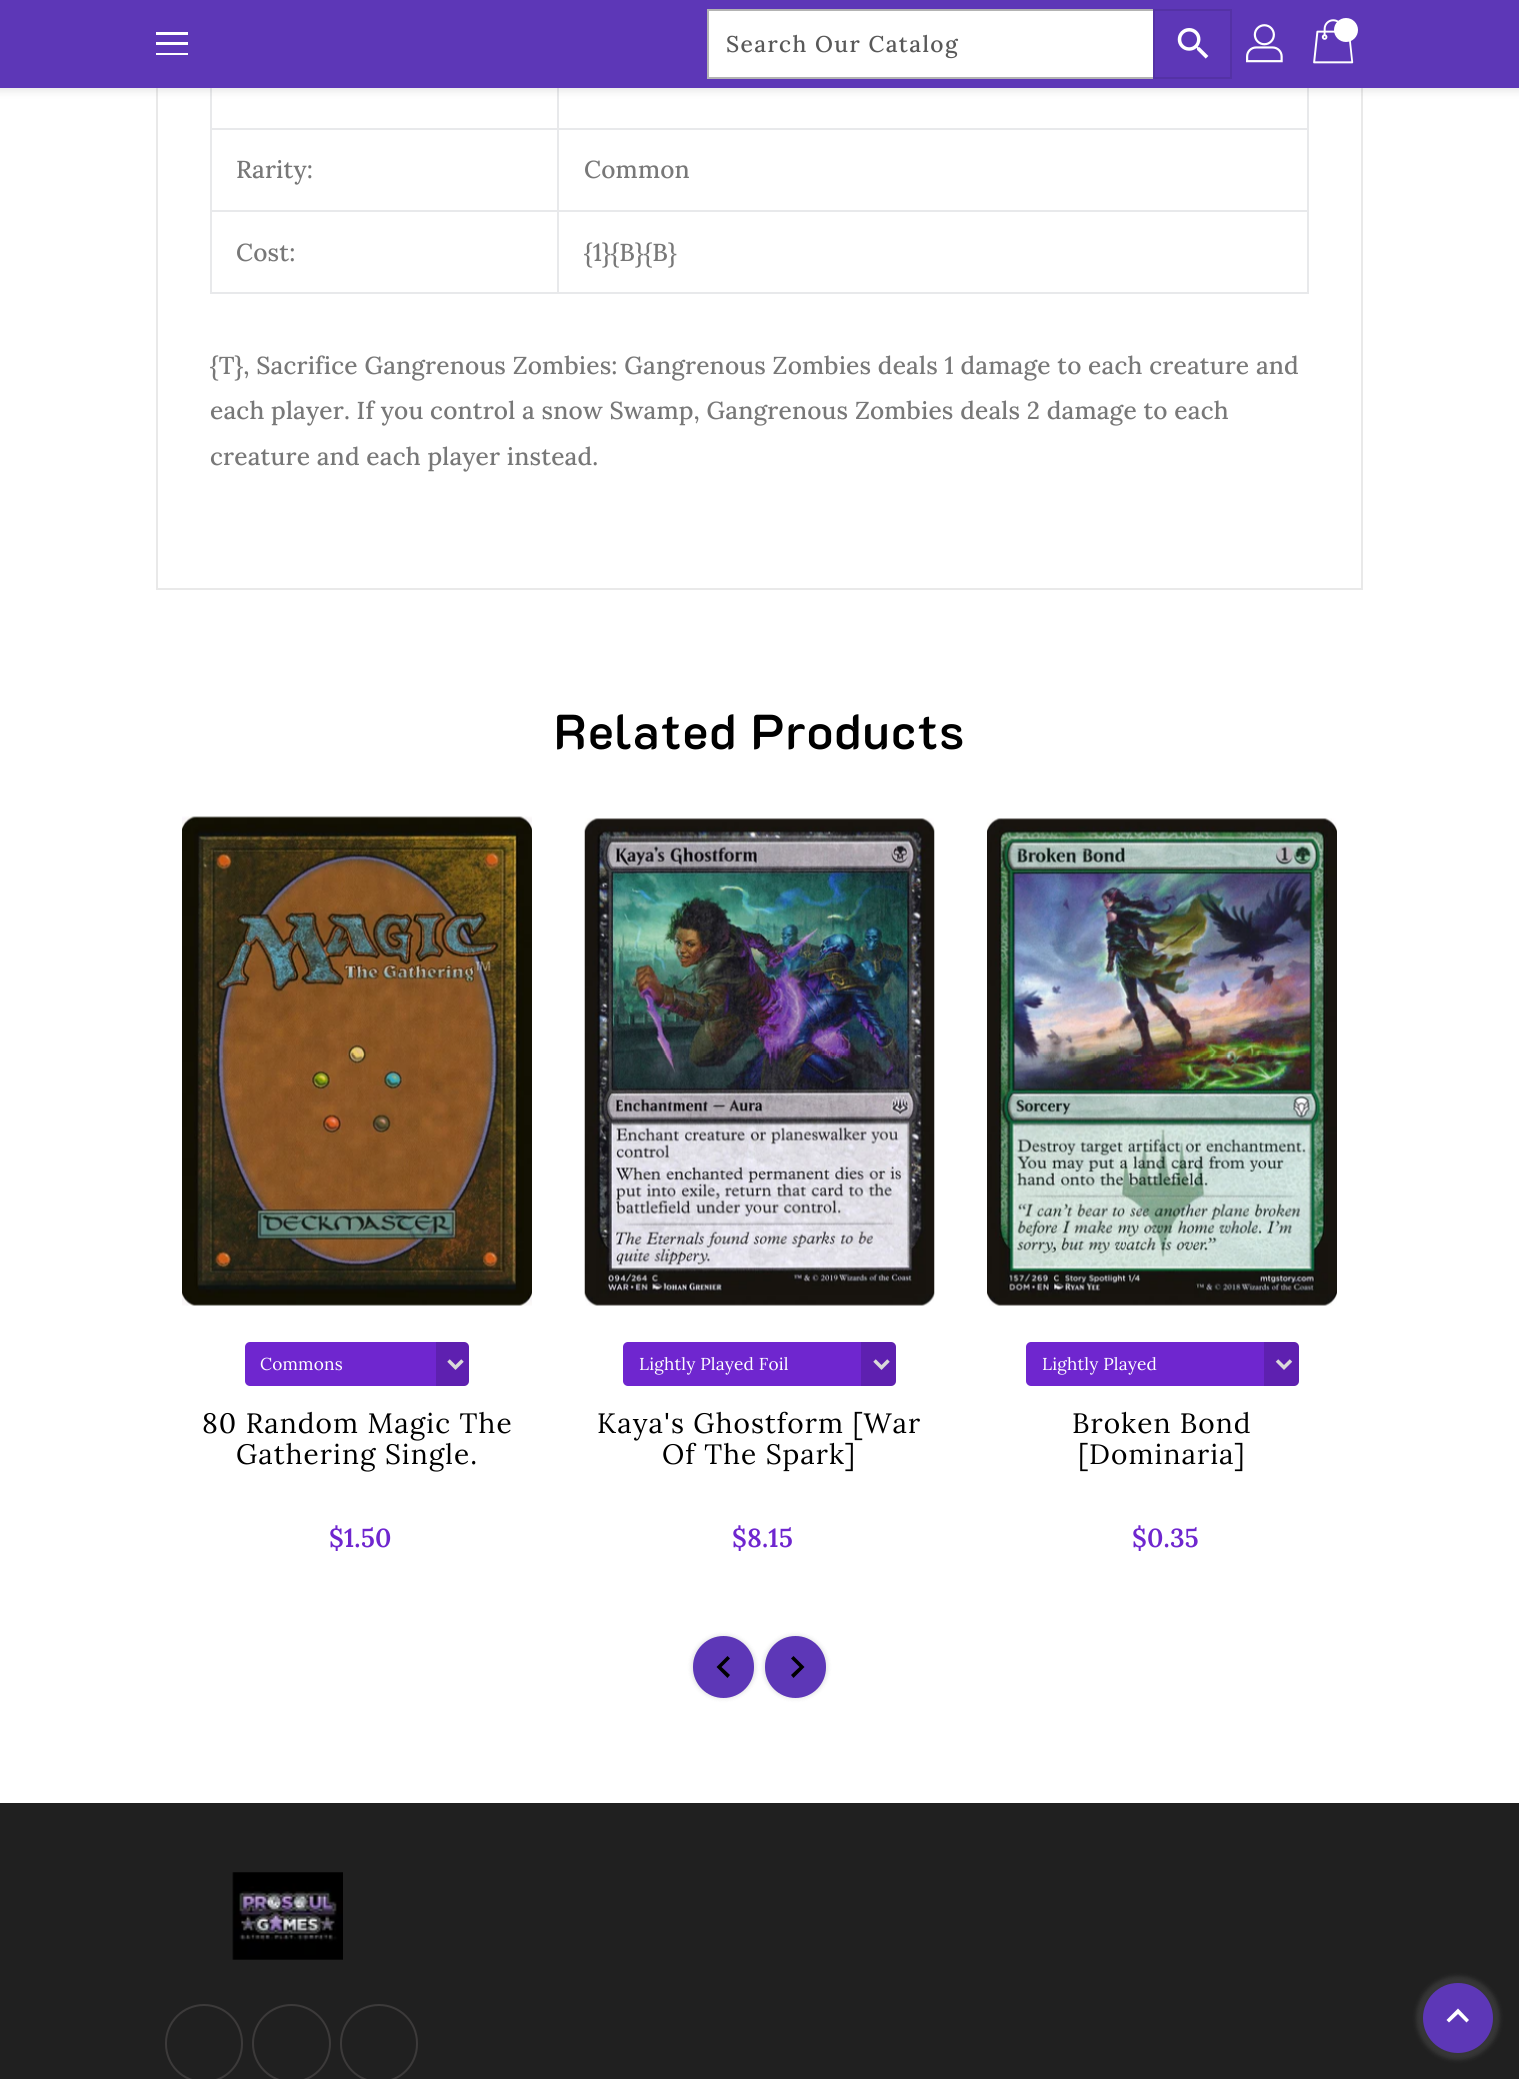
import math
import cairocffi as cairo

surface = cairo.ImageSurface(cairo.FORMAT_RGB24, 1519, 2079)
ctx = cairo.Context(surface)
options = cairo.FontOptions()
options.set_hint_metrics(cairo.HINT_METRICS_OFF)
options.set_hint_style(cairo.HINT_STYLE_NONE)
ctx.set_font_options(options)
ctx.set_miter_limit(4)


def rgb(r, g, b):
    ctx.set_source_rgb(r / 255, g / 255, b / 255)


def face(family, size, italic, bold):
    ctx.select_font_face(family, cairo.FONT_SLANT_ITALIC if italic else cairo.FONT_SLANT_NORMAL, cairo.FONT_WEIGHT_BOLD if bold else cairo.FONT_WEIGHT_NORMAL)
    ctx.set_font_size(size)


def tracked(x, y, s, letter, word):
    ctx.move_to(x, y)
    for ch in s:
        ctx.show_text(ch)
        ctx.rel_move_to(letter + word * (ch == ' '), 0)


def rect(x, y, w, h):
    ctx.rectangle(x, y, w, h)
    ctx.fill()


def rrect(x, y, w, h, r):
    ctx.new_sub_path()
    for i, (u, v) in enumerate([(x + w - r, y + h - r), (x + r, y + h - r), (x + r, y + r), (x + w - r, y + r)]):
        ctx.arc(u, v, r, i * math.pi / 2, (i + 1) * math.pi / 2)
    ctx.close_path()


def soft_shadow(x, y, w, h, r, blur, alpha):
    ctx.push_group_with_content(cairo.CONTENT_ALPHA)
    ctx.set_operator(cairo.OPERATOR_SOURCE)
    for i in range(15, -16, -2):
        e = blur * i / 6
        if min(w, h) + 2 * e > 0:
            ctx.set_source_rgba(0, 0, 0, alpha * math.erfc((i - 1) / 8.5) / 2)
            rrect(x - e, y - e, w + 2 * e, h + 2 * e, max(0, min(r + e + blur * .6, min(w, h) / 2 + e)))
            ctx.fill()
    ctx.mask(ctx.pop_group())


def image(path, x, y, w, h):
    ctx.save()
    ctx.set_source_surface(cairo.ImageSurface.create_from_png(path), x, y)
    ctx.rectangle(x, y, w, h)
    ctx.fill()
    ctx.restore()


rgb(255, 255, 255)
ctx.paint()
ctx.rectangle(157, -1, 1205, 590)
rgb(233, 233, 233)
ctx.stroke()
rgb(232, 233, 235)
rect(557, 128, 752, 2)
rect(557, 210, 752, 2)
rect(1307, 210, 2, 84)
rect(557, 292, 752, 2)
rect(557, 210, 2, 84)
rect(210, 210, 348, 2)
rect(557, 128, 2, 84)
rect(210, 128, 348, 2)
rect(557, 88, 2, 42)
rect(210, 292, 348, 2)
rect(210, 210, 2, 84)
rect(210, 88, 2, 124)
rect(1307, 88, 2, 124)
rgb(0, 0, 0)
soft_shadow(-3, -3, 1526, 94, 0, 4.5, 0.1)
rgb(93, 55, 183)
rect(0, 0, 1519, 88)
rgb(255, 255, 255)
rect(156, 32, 32, 3)
rect(156, 42, 32, 3)
rect(156, 53, 32, 2)
rect(709, 11, 444, 66)
ctx.rectangle(708, 10, 523, 68)
rgb(179, 179, 179)
ctx.stroke()
face('Lora Medium', 22.75, 0, 0)
rgb(89, 89, 89)
tracked(726, 52, 'Search Our Catalog', 1.4, 0)
ctx.rectangle(1154, 10, 77, 68)
rgb(84, 50, 165)
ctx.stroke()
image('image0.png', 1177, 28, 32, 31)
image('image1.png', 1246, 24, 37, 39)
image('image2.png', 1313, 19, 41, 45)
rgb(255, 255, 255)
ctx.arc(1346, 30, 12, 0, 2 * math.pi)
ctx.fill()
face('Lora Medium', 24.5, 0, 0)
rgb(120, 120, 120)
tracked(236, 178, 'Rarity:', 0.18, 0)
tracked(584, 178, 'Common', 0.18, 0)
tracked(236, 261, 'Cost:', 0.18, 0)
tracked(584, 261, '{1}{B}{B}', 0.18, 0)
tracked(210, 374, '{T}, Sacrifice Gangrenous Zombies: Gangrenous Zombies deals 1 damage to each creature and', 0.18, 0)
tracked(210, 419, 'each player. If you control a snow Swamp, Gangrenous Zombies deals 2 damage to each', 0.18, 0)
tracked(210, 465, 'creature and each player instead.', 0.18, 0)
face('K2D SemiBold', 49, 0, 0)
rgb(0, 0, 0)
tracked(554, 749, 'Related Products', 0.9, 0)
image('image3.png', 182, 816, 350, 490)
rgb(111, 38, 207)
rrect(245, 1342, 224, 44, 5)
ctx.fill()
ctx.new_path()
ctx.move_to(448.5, 1360.5)
ctx.line_to(455.5, 1367.5)
ctx.line_to(462.5, 1360.5)
rgb(255, 255, 255)
ctx.set_line_width(3.5)
ctx.stroke()
face('Lora', 17.25, 0, 0)
tracked(260, 1370, 'Commons', 0.18, 0)
ctx.set_source_rgba(0, 0, 0, 0.15)
ctx.new_path()
ctx.move_to(436, 1342)
ctx.line_to(464, 1342)
ctx.curve_to(467, 1342, 469, 1344, 469, 1347)
ctx.line_to(469, 1381)
ctx.curve_to(469, 1384, 467, 1386, 464, 1386)
ctx.line_to(436, 1386)
ctx.close_path()
ctx.fill()
face('Lora', 28, 0, 0)
rgb(0, 0, 0)
tracked(202, 1433, '80 Random Magic The', 1.05, 0)
tracked(236, 1464, 'Gathering Single.', 1.05, 0)
face('Lora SemiBold', 26, 0, 0)
rgb(111, 38, 207)
tracked(329, 1547, '$1.50', 0.18, 0)
image('image4.png', 584, 818, 351, 488)
rrect(623, 1342, 273, 44, 5)
ctx.fill()
ctx.new_path()
ctx.move_to(874.5, 1360.5)
ctx.line_to(881.5, 1367.5)
ctx.line_to(888.5, 1360.5)
rgb(255, 255, 255)
ctx.stroke()
face('Lora', 17.25, 0, 0)
tracked(639, 1370, 'Lightly Played Foil', 0.18, 0)
ctx.set_source_rgba(0, 0, 0, 0.15)
ctx.new_path()
ctx.move_to(861, 1342)
ctx.line_to(891, 1342)
ctx.curve_to(894, 1342, 896, 1344, 896, 1347)
ctx.line_to(896, 1381)
ctx.curve_to(896, 1384, 894, 1386, 891, 1386)
ctx.line_to(861, 1386)
ctx.close_path()
ctx.fill()
face('Lora', 28, 0, 0)
rgb(0, 0, 0)
tracked(597, 1433, 'Kaya\'s Ghostform [War', 1.05, 0)
tracked(662, 1464, 'Of The Spark]', 1.05, 0)
face('Lora SemiBold', 26, 0, 0)
rgb(111, 38, 207)
tracked(732, 1547, '$8.15', 0.18, 0)
image('image5.png', 987, 818, 350, 488)
rrect(1026, 1342, 273, 44, 5)
ctx.fill()
ctx.new_path()
ctx.move_to(1277, 1360.5)
ctx.line_to(1284, 1367.5)
ctx.line_to(1291, 1360.5)
rgb(255, 255, 255)
ctx.stroke()
face('Lora', 17.25, 0, 0)
tracked(1042, 1370, 'Lightly Played', 0.18, 0)
ctx.set_source_rgba(0, 0, 0, 0.15)
ctx.new_path()
ctx.move_to(1264, 1342)
ctx.line_to(1294, 1342)
ctx.curve_to(1297, 1342, 1299, 1344, 1299, 1347)
ctx.line_to(1299, 1381)
ctx.curve_to(1299, 1384, 1297, 1386, 1294, 1386)
ctx.line_to(1264, 1386)
ctx.close_path()
ctx.fill()
face('Lora', 28, 0, 0)
rgb(0, 0, 0)
tracked(1072, 1433, 'Broken Bond', 1.05, 0)
tracked(1078, 1464, '[Dominaria]', 1.05, 0)
face('Lora SemiBold', 26, 0, 0)
rgb(111, 38, 207)
tracked(1132, 1547, '$0.35', 0.18, 0)
rgb(0, 0, 0)
soft_shadow(691, 1635, 65, 64, 32, 2, 0.1)
rgb(93, 55, 183)
rrect(693, 1636, 61, 62, 30.5)
ctx.fill()
rgb(0, 0, 0)
ctx.new_path()
ctx.move_to(730, 1675)
ctx.line_to(727.5, 1678)
ctx.line_to(716.5, 1667)
ctx.line_to(727.5, 1656)
ctx.line_to(730, 1658.5)
ctx.line_to(721.5, 1667)
ctx.close_path()
ctx.fill()
rgb(0, 0, 0)
soft_shadow(763, 1635, 65, 64, 32, 2, 0.1)
rgb(93, 55, 183)
rrect(765, 1636, 61, 62, 30.5)
ctx.fill()
rgb(0, 0, 0)
ctx.new_path()
ctx.move_to(791, 1675)
ctx.line_to(799.5, 1667)
ctx.line_to(791, 1658.5)
ctx.line_to(793.5, 1656)
ctx.line_to(804.5, 1667)
ctx.line_to(793.5, 1678)
ctx.close_path()
ctx.fill()
rgb(32, 32, 32)
rect(0, 1803, 1519, 276)
image('image6.png', 232, 1872, 111, 88)
rrect(166, 2005, 76, 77, 38)
rgb(60, 58, 58)
ctx.set_line_width(2)
ctx.stroke()
ctx.arc(291.5, 2043.5, 38.5, 0, 2 * math.pi)
ctx.stroke()
rrect(341, 2005, 76, 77, 38)
ctx.stroke()
rgb(255, 255, 255)
soft_shadow(1416, 1976, 84, 84, 42, 2, 0.1)
rgb(93, 55, 183)
ctx.arc(1458, 2018, 35, 0, 2 * math.pi)
ctx.fill()
rgb(255, 255, 255)
ctx.new_path()
ctx.move_to(1458, 2008.5)
ctx.line_to(1469, 2020)
ctx.line_to(1466.5, 2022.5)
ctx.line_to(1458, 2014)
ctx.line_to(1449, 2022.5)
ctx.line_to(1446.5, 2020)
ctx.close_path()
ctx.fill()
surface.write_to_png('render.png')
